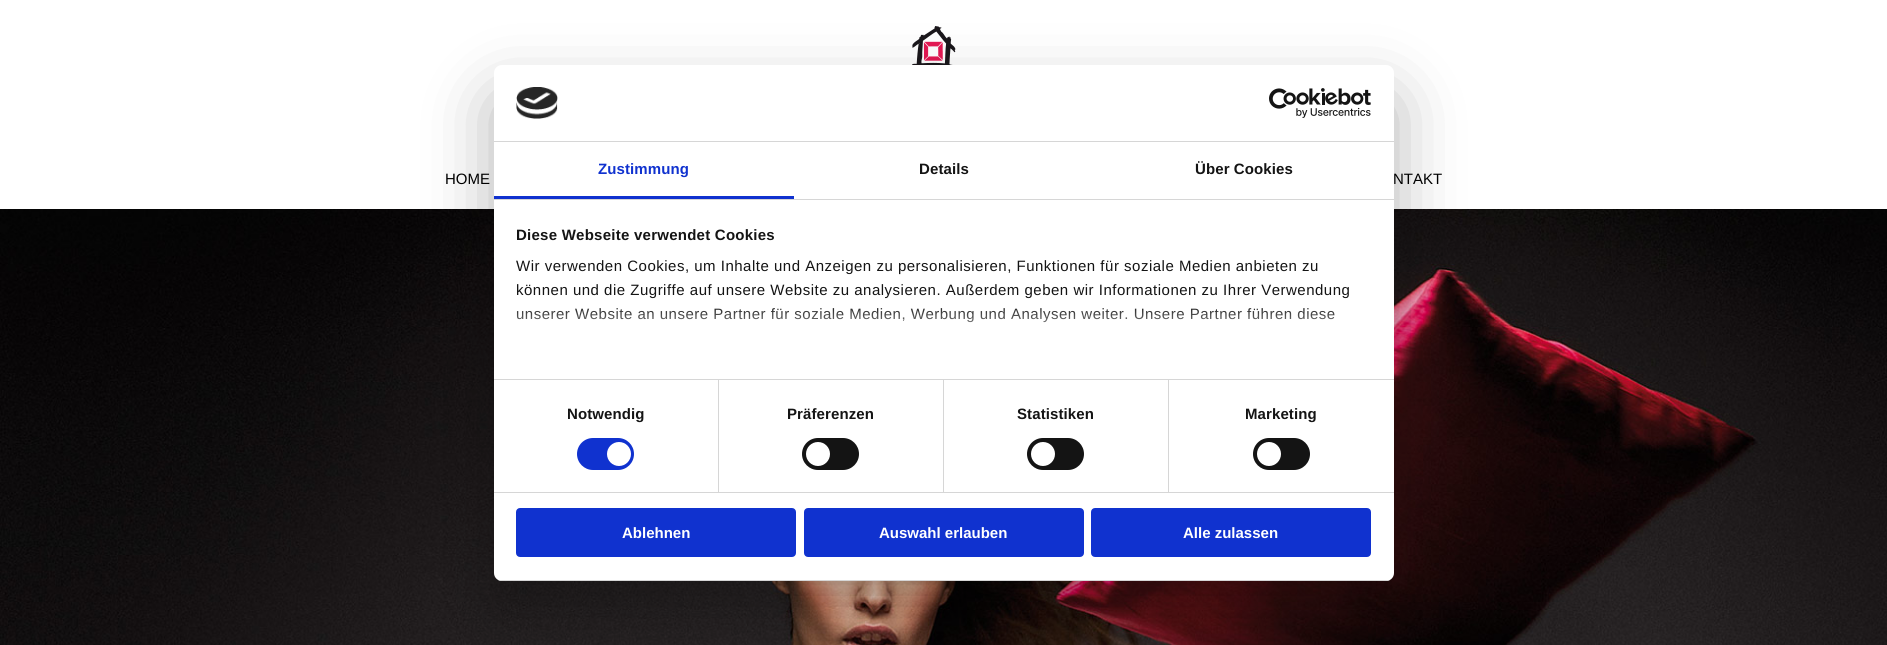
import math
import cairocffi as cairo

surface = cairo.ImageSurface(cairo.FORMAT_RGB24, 1887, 645)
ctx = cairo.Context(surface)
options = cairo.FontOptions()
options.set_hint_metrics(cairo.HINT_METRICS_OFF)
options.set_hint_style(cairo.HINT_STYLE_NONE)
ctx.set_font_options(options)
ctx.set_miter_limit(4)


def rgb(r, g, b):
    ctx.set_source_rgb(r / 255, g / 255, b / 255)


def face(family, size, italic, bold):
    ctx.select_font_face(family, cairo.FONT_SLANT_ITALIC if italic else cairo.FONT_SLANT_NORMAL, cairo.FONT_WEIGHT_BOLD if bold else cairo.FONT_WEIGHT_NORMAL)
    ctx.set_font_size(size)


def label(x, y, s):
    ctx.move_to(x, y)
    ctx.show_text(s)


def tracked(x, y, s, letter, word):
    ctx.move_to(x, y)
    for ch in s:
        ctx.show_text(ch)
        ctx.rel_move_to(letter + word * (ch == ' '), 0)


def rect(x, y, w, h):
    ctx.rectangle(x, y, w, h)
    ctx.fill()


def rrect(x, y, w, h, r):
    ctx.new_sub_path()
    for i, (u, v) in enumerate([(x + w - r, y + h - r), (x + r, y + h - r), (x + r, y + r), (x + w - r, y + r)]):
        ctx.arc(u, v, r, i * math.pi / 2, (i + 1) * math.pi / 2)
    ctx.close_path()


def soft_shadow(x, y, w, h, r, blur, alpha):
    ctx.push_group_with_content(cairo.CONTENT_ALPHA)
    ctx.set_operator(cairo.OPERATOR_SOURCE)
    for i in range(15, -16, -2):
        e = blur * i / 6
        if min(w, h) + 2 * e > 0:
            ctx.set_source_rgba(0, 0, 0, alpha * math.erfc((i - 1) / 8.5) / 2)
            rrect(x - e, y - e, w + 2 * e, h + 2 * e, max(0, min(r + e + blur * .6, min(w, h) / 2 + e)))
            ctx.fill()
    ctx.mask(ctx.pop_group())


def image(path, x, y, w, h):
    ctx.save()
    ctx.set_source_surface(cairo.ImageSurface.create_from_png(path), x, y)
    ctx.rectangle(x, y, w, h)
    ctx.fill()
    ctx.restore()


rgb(255, 255, 255)
ctx.paint()
image('image2.png', 912, 26, 44, 39)
image('image3.png', 0, 209, 1887, 436)
rgb(0, 0, 0)
soft_shadow(494, 97, 900, 516, 8, 34, 0.3)
face('Liberation Sans', 15, 0, 0)
rgb(0, 0, 0)
label(1393, 184, 'NTAKT')
rgb(255, 255, 255)
rrect(494, 65, 900, 516, 8)
ctx.fill()
rgb(214, 214, 214)
rect(494, 141, 900, 1)
image('image0.png', 516, 87, 42, 32)
image('image1.png', 1269, 88, 102, 30)
rect(494, 199, 900, 1)
rgb(16, 50, 207)
rect(494, 196, 300, 3)
face('Liberation Sans', 15, 0, 1)
tracked(598, 174, 'Zustimmung', 0.1, 0)
rgb(20, 20, 20)
tracked(919, 174, 'Details', 0.1, 0)
tracked(1195, 174, 'Über Cookies', 0.1, 0)
rgb(214, 214, 214)
rect(494, 379, 900, 1)
rgb(20, 20, 20)
tracked(516, 240, 'Diese Webseite verwendet Cookies', 0.25, 0)
face('Liberation Sans', 15, 0, 0)
tracked(516, 271, 'Wir verwenden Cookies, um Inhalte und Anzeigen zu personalisieren, Funktionen für soziale Medien anbieten zu', 0.5, 0)
tracked(516, 295, 'können und die Zugriffe auf unsere Website zu analysieren. Außerdem geben wir Informationen zu Ihrer Verwendung', 0.5, 0)
tracked(516, 319, 'unserer Website an unsere Partner für soziale Medien, Werbung und Analysen weiter. Unsere Partner führen diese', 0.5, 0)
gradient = cairo.LinearGradient(934, 379, 934, 304)
gradient.add_color_stop_rgba(0, 1, 1, 1, 1)
gradient.add_color_stop_rgba(0.5, 1, 1, 1, 0.8)
gradient.add_color_stop_rgba(1, 1, 1, 1, 0)
ctx.set_source(gradient)
rect(517, 308, 818, 15)
rgb(214, 214, 214)
rect(494, 492, 900, 1)
rect(718, 380, 1, 112)
face('Liberation Sans', 15, 0, 1)
rgb(20, 20, 20)
tracked(567, 419, 'Notwendig', 0.1, 0)
rgb(16, 50, 207)
rrect(577, 438, 57, 32, 16)
ctx.fill()
rgb(255, 255, 255)
ctx.arc(619, 454, 12, 0, 2 * math.pi)
ctx.fill()
rgb(214, 214, 214)
rect(943, 380, 1, 112)
rgb(20, 20, 20)
tracked(787, 419, 'Präferenzen', 0.1, 0)
rrect(802, 438, 57, 32, 16)
ctx.fill()
rgb(255, 255, 255)
ctx.arc(818, 454, 12, 0, 2 * math.pi)
ctx.fill()
rgb(214, 214, 214)
rect(1168, 380, 1, 112)
rgb(20, 20, 20)
tracked(1017, 419, 'Statistiken', 0.1, 0)
rrect(1027, 438, 57, 32, 16)
ctx.fill()
rgb(255, 255, 255)
ctx.arc(1043, 454, 12, 0, 2 * math.pi)
ctx.fill()
rgb(20, 20, 20)
tracked(1245, 419, 'Marketing', 0.1, 0)
rrect(1253, 438, 57, 32, 16)
ctx.fill()
rgb(255, 255, 255)
ctx.arc(1269, 454, 12, 0, 2 * math.pi)
ctx.fill()
ctx.save()
rrect(494, 65, 900, 516, 8)
ctx.clip()
rgb(214, 214, 214)
rect(494, 580, 900, 1)
ctx.restore()
rgb(16, 50, 207)
rrect(517, 509, 278, 47, 3)
ctx.fill_preserve()
ctx.stroke()
rgb(255, 255, 255)
label(622, 538, 'Ablehnen')
rgb(16, 50, 207)
rrect(805, 509, 278, 47, 3)
ctx.fill_preserve()
ctx.stroke()
rgb(255, 255, 255)
label(879, 538, 'Auswahl erlauben')
rgb(16, 50, 207)
rrect(1092, 509, 278, 47, 3)
ctx.fill_preserve()
ctx.stroke()
rgb(255, 255, 255)
label(1183, 538, 'Alle zulassen')
face('Liberation Sans', 15, 0, 0)
rgb(0, 0, 0)
label(445, 184, 'HOME')
surface.write_to_png('render.png')
